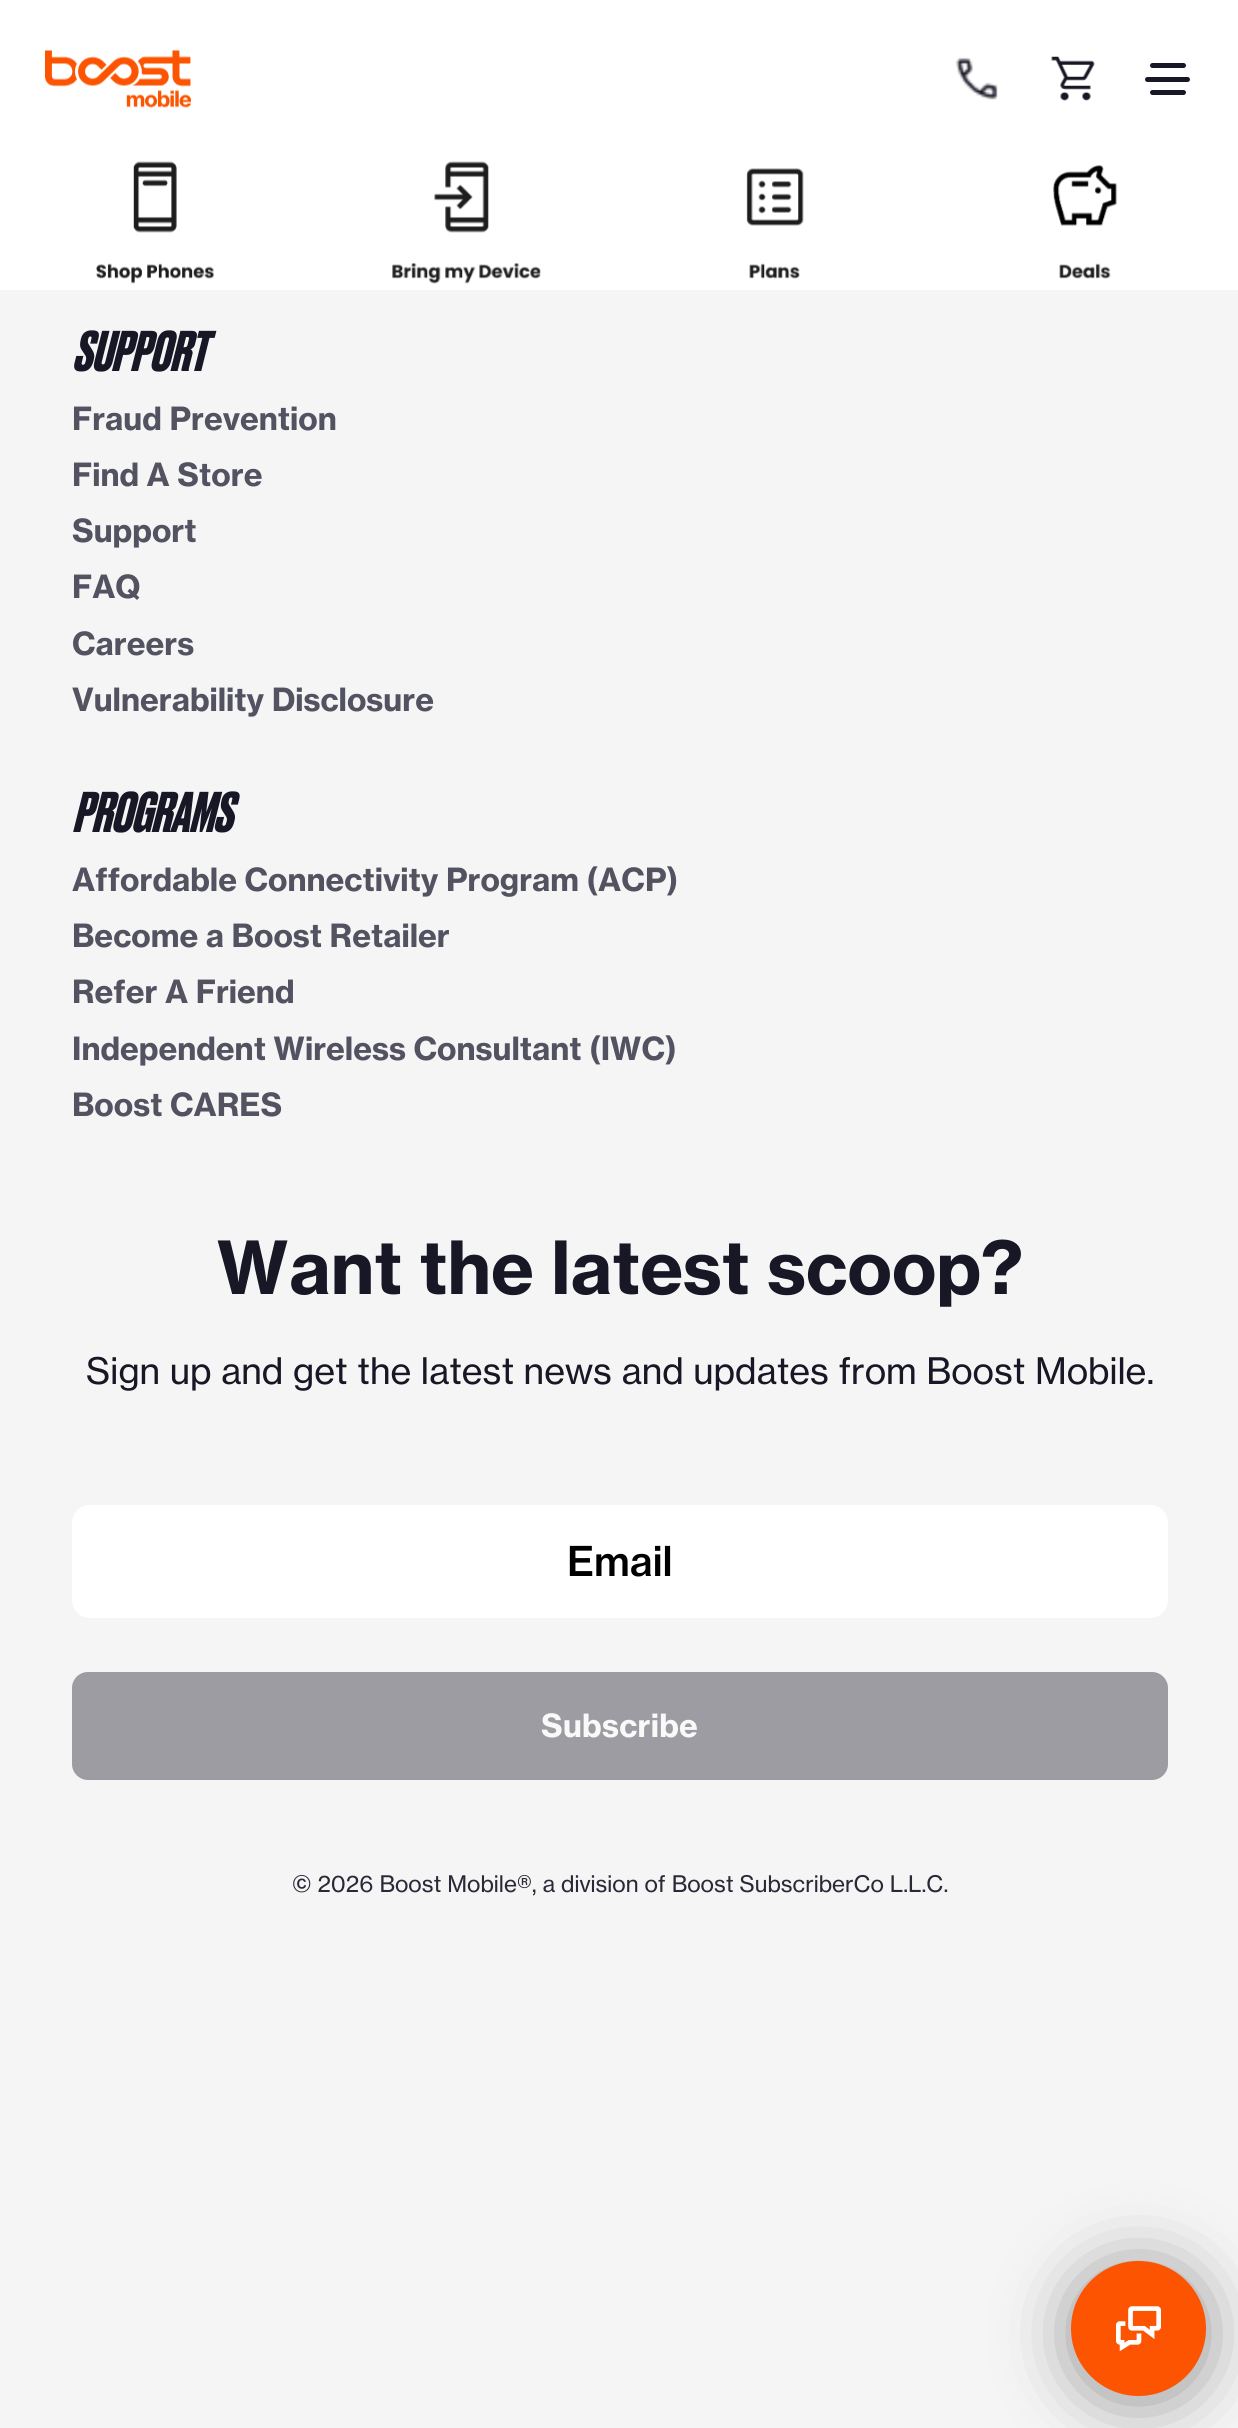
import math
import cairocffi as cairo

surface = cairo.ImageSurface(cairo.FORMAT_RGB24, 1238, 2428)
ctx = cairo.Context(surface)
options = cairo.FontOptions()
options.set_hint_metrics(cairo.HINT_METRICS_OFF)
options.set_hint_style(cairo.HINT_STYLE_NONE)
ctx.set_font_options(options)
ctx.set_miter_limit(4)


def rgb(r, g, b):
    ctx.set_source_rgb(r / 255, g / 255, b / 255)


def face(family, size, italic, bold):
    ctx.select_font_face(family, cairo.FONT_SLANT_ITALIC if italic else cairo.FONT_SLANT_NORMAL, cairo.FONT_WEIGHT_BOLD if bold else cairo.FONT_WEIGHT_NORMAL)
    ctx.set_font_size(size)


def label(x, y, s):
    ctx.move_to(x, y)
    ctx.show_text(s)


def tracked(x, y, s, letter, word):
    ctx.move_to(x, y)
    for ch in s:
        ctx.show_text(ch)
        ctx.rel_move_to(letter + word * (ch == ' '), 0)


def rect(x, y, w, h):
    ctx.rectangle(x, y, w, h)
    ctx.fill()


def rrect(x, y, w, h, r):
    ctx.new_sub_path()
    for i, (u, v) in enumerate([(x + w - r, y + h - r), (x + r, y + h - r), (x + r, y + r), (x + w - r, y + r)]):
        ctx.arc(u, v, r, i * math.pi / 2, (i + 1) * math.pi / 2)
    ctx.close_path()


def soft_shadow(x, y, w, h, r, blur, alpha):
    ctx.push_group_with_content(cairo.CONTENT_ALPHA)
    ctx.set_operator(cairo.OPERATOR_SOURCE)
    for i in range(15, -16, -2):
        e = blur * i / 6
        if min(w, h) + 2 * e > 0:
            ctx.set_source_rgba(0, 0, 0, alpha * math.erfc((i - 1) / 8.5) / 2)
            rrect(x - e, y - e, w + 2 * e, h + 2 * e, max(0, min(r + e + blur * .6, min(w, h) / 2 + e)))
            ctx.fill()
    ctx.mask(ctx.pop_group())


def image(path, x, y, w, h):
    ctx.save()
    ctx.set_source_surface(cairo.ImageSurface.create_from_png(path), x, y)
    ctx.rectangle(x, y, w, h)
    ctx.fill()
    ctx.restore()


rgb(245, 245, 246)
ctx.paint()
rgb(255, 255, 255)
rect(0, 0, 1238, 290)
image('image0.png', 45, 49, 146, 59)
image('image1.png', 955, 57, 43, 43)
image('image2.png', 1051, 56, 44, 45)
rgb(23, 23, 37)
rrect(1150, 63, 36, 5, 2.5)
ctx.fill()
rrect(1145, 77, 45, 5, 2.5)
ctx.fill()
rrect(1150, 90, 36, 5, 2.5)
ctx.fill()
image('image3.png', 96, 161, 118, 123)
image('image4.png', 392, 161, 149, 123)
image('image5.png', 746, 168, 58, 111)
image('image6.png', 1053, 165, 65, 114)
face('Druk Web', 54, 1, 1)
tracked(72, 371, 'SUPPORT', -0.5, 0)
face('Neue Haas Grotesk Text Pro', 31.5, 0, 1)
rgb(82, 82, 97)
label(72, 430, 'Fraud Prevention')
label(72, 486, 'Find A Store')
label(72, 542, 'Support')
label(72, 598, 'FAQ')
label(72, 655, 'Careers')
label(72, 711, 'Vulnerability Disclosure')
face('Druk Web', 54, 1, 1)
rgb(23, 23, 37)
tracked(72, 832, 'PROGRAMS', -0.5, 0)
face('Neue Haas Grotesk Text Pro', 31.5, 0, 1)
rgb(82, 82, 97)
label(72, 891, 'Affordable Connectivity Program (ACP)')
label(72, 947, 'Become a Boost Retailer')
label(72, 1003, 'Refer A Friend')
label(72, 1060, 'Independent Wireless Consultant (IWC)')
label(72, 1116, 'Boost CARES')
face('Neue Haas Grotesk Text Pro', 72, 0, 1)
rgb(23, 23, 37)
label(217, 1294, 'Want the latest scoop?')
face('Neue Haas Grotesk Text Pro', 36, 0, 0)
label(86, 1384, 'Sign up and get the latest news and updates from Boost Mobile.')
rgb(255, 255, 255)
rrect(72, 1505, 1096, 113, 18)
ctx.fill()
face('Neue Haas Grotesk Text Pro Medium', 40.5, 0, 0)
rgb(0, 0, 0)
label(567, 1576, 'Email')
rgb(156, 156, 162)
rrect(72, 1672, 1096, 108, 16)
ctx.fill()
face('Neue Haas Grotesk Text Pro', 31.5, 0, 1)
rgb(249, 249, 250)
tracked(541, 1737, 'Subscribe', 0.25, 0)
face('Neue Haas Grotesk Text Pro', 22.5, 0, 0)
rgb(41, 41, 56)
label(292, 1892, '© 2026 Boost Mobile®, a division of Boost SubscriberCo L.L.C.')
rgb(0, 0, 0)
soft_shadow(1071, 2266, 135, 135, 67.5, 34, 0.4)
rgb(252, 84, 0)
ctx.arc(1138.5, 2328.5, 67.5, 0, 2 * math.pi)
ctx.fill()
image('image7.png', 1116, 2306, 45, 45)
surface.write_to_png('render.png')
